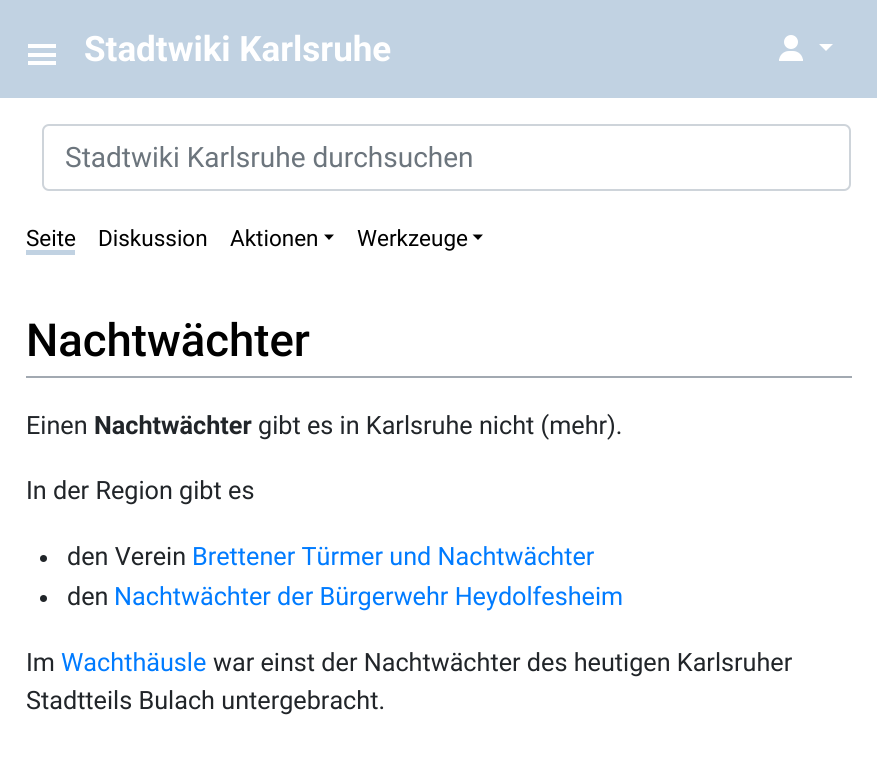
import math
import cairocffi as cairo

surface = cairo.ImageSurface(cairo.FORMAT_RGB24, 877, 757)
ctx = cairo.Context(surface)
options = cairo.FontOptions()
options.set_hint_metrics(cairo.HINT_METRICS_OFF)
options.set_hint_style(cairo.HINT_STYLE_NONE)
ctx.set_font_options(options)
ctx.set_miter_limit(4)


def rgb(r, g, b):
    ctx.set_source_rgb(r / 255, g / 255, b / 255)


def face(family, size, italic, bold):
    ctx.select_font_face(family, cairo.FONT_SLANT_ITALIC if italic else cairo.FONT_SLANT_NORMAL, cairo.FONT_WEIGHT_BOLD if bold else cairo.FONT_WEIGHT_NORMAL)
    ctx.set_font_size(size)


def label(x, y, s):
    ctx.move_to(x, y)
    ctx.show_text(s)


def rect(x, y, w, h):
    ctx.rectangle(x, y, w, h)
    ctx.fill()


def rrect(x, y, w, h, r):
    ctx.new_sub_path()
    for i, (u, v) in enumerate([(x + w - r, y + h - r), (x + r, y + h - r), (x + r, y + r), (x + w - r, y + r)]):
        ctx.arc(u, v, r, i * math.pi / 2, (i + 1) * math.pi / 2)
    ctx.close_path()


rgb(255, 255, 255)
ctx.paint()
rgb(193, 210, 226)
rect(0, 0, 877, 98)
rgb(255, 255, 255)
rect(28, 61, 28, 4)
rect(28, 44, 28, 4)
rect(28, 53, 28, 4)
face('Roboto', 35, 0, 1)
label(84, 61, 'Stadtwiki Karlsruhe')
ctx.new_path()
ctx.move_to(789, 52)
ctx.line_to(793, 52)
ctx.curve_to(798, 52, 802, 56, 802, 61)
ctx.line_to(802, 60)
ctx.line_to(780, 60)
ctx.line_to(780, 61)
ctx.curve_to(780, 56, 784, 52, 789, 52)
ctx.close_path()
ctx.fill_preserve()
ctx.stroke()
ctx.arc(791, 42, 6, 0, 2 * math.pi)
ctx.fill_preserve()
ctx.stroke()
ctx.new_path()
ctx.move_to(819, 44)
ctx.line_to(833, 44)
ctx.line_to(826, 51)
ctx.close_path()
ctx.fill()
rrect(43, 125, 807, 65, 6)
rgb(206, 212, 218)
ctx.stroke()
face('Roboto', 28, 0, 0)
rgb(108, 117, 125)
label(65, 167, 'Stadtwiki Karlsruhe durchsuchen')
face('Roboto', 22.5, 0, 0)
rgb(0, 0, 0)
label(26, 246, 'Seite')
rgb(193, 210, 226)
rect(26, 250, 49, 5)
rgb(0, 0, 0)
label(98, 246, 'Diskussion')
label(230, 246, 'Aktionen')
ctx.new_path()
ctx.move_to(324, 234.5)
ctx.line_to(334, 234.5)
ctx.line_to(329, 240)
ctx.close_path()
ctx.fill()
label(357, 246, 'Werkzeuge')
ctx.new_path()
ctx.move_to(472.5, 234.5)
ctx.line_to(483, 234.5)
ctx.line_to(478, 240)
ctx.close_path()
ctx.fill()
rgb(162, 169, 177)
rect(26, 376, 826, 2)
face('Roboto Medium', 45.5, 0, 0)
rgb(0, 0, 0)
label(26, 356, 'Nachtwächter')
face('Roboto', 25.2, 0, 0)
rgb(33, 37, 41)
label(26, 434, 'Einen')
face('Roboto', 25.2, 0, 1)
label(94, 434, 'Nachtwächter')
face('Roboto', 25.2, 0, 0)
label(258, 434, 'gibt es in Karlsruhe nicht (mehr).')
label(26, 499, 'In der Region gibt es')
ctx.new_path()
ctx.arc(43.5, 558.5, 3.5, 0, 2 * math.pi)
ctx.fill()
label(67, 565, 'den Verein')
rgb(0, 123, 255)
label(192, 565, 'Brettener Türmer und Nachtwächter')
rgb(33, 37, 41)
ctx.new_path()
ctx.arc(43.5, 598.5, 3.5, 0, 2 * math.pi)
ctx.fill()
label(67, 605, 'den')
rgb(0, 123, 255)
label(114, 605, 'Nachtwächter der Bürgerwehr Heydolfesheim')
rgb(33, 37, 41)
label(26, 671, 'Im')
rgb(0, 123, 255)
label(61, 671, 'Wachthäusle')
rgb(33, 37, 41)
label(213, 671, 'war einst der Nachtwächter des heutigen Karlsruher')
label(26, 709, 'Stadtteils Bulach untergebracht.')
surface.write_to_png('render.png')
